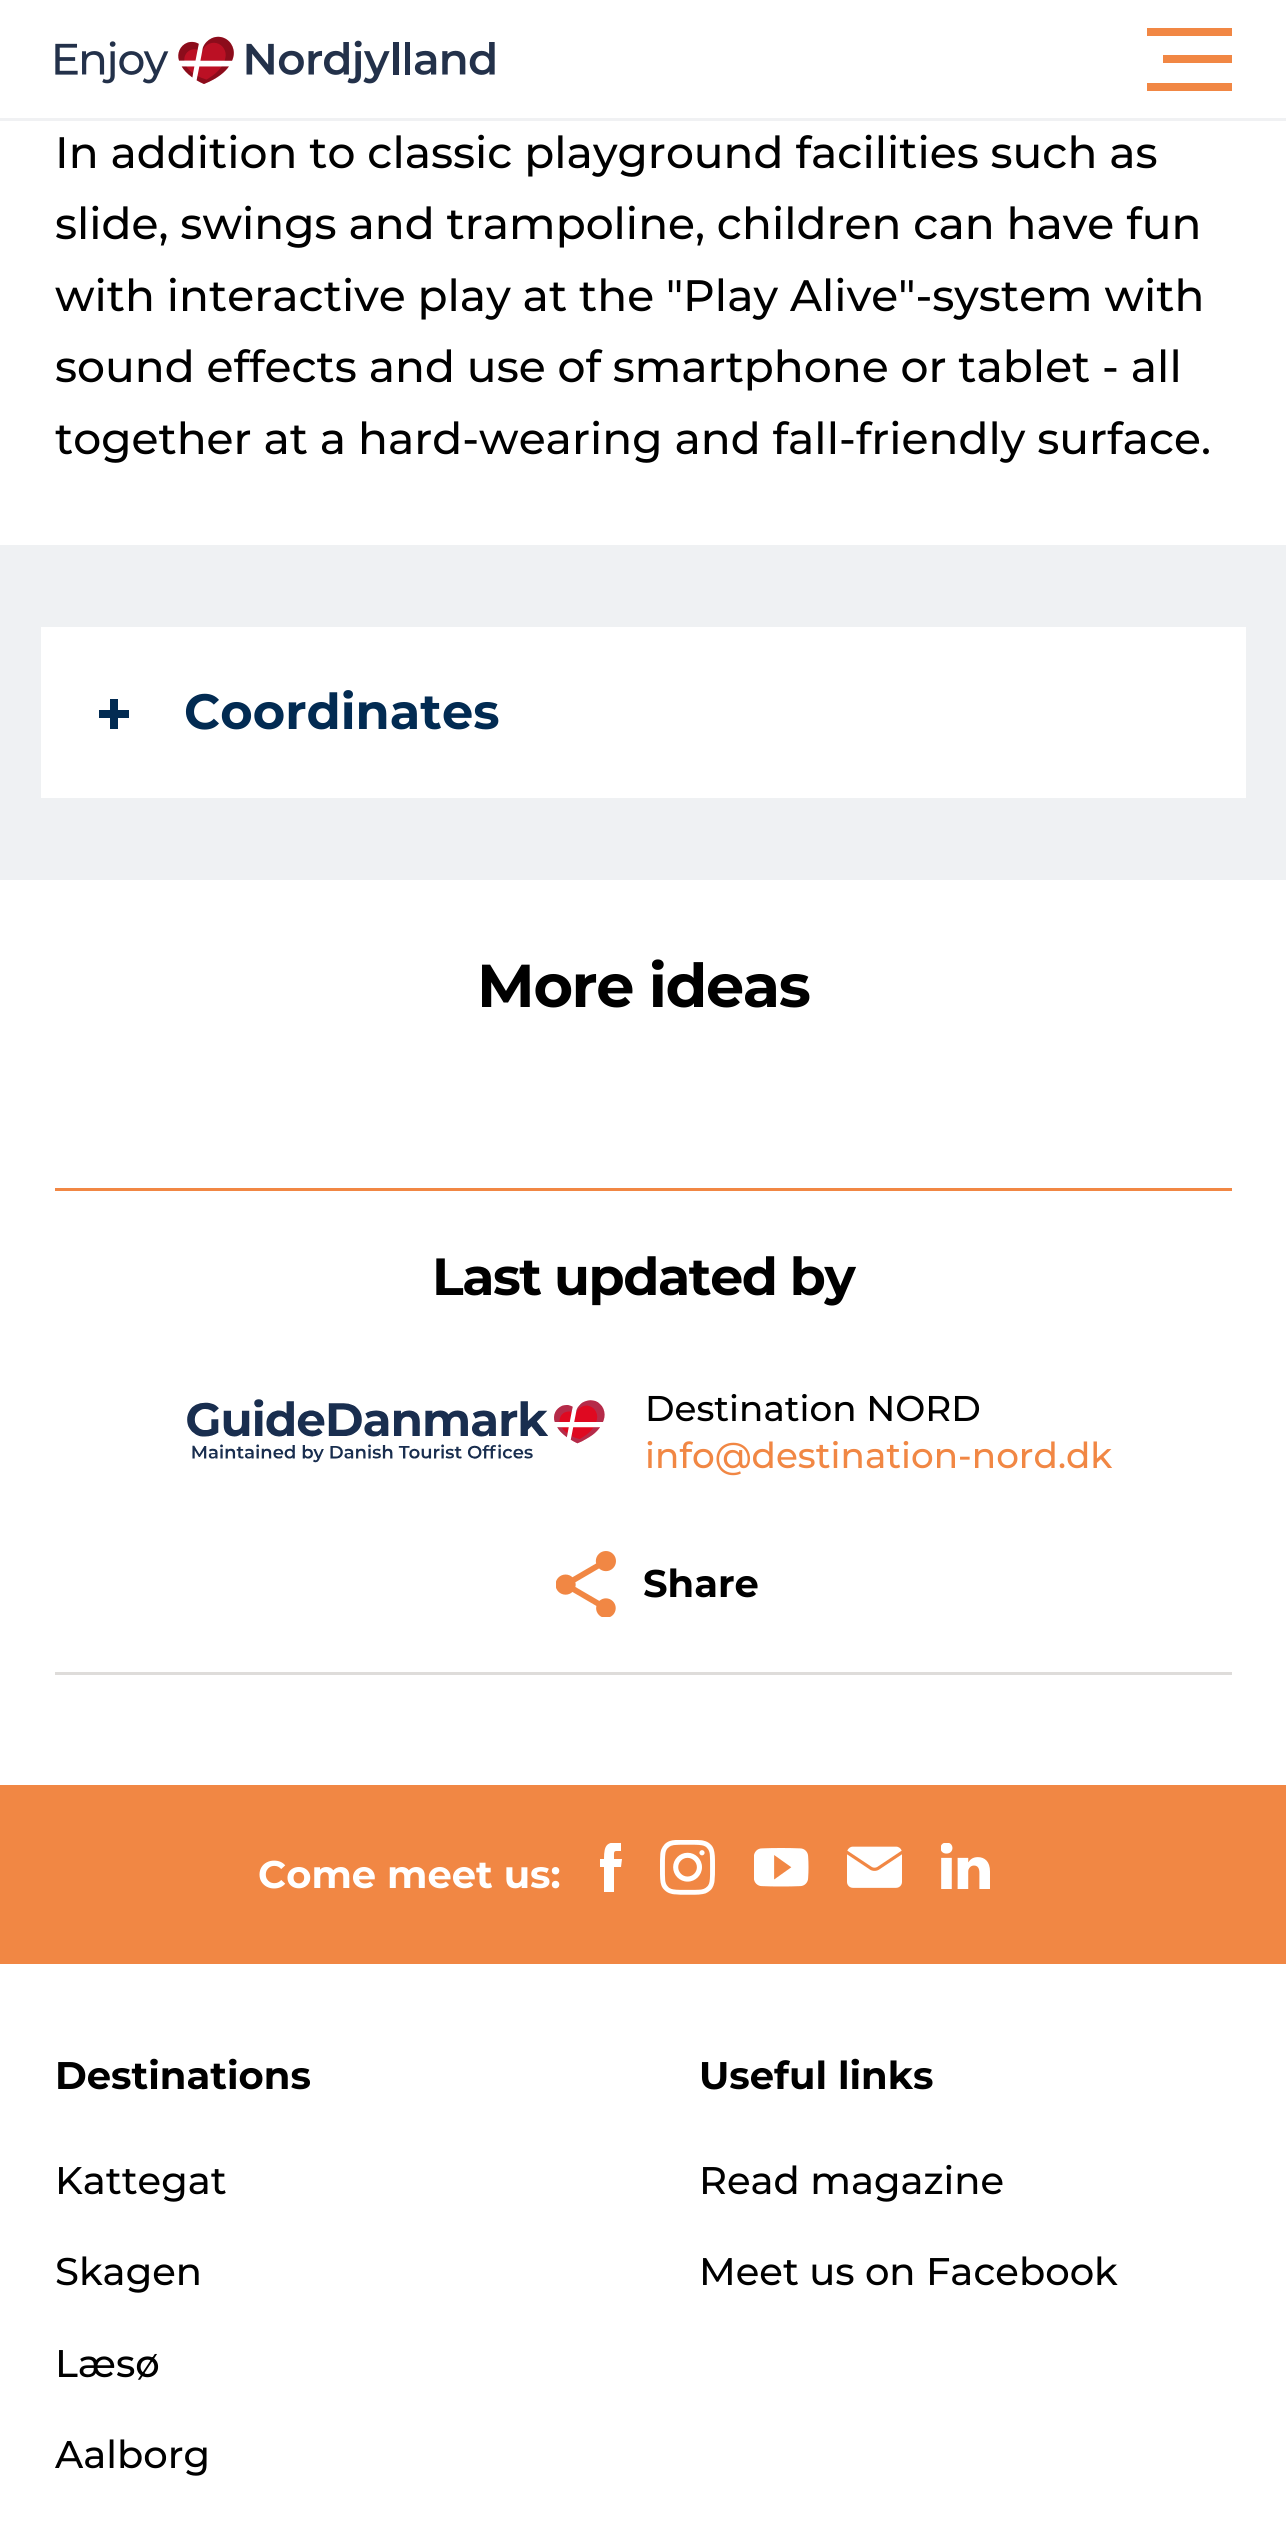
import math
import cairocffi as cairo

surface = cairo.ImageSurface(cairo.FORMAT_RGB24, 1286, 2538)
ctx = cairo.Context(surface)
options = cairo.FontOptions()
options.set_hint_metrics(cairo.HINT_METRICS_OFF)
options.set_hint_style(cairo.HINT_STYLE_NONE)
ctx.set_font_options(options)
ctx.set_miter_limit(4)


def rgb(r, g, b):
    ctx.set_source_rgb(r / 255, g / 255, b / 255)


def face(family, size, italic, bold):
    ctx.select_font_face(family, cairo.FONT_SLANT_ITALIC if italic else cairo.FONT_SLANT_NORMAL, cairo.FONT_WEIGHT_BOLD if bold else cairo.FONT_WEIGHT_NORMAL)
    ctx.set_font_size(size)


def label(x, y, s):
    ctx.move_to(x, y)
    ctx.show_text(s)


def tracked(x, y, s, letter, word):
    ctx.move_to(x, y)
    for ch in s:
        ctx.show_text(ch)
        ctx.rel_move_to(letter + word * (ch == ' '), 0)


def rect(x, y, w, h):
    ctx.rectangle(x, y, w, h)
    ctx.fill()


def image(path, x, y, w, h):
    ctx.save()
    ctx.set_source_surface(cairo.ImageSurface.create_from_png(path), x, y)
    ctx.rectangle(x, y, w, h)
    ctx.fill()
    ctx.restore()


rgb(255, 255, 255)
ctx.paint()
rgb(240, 241, 243)
rect(0, 118, 1286, 3)
image('image0.png', 55, 36, 440, 48)
rgb(241, 135, 68)
rect(1147, 28, 85, 8)
rect(1163, 55, 69, 8)
rect(1147, 83, 85, 8)
face('Montserrat Medium', 44, 0, 0)
rgb(0, 0, 0)
label(55, 168, 'In addition to classic playground facilities such as')
label(55, 239, 'slide, swings and trampoline, children can have fun')
label(55, 311, 'with interactive play at the "Play Alive"-system with')
label(55, 382, 'sound effects and use of smartphone or tablet - all')
label(55, 454, 'together at a hard-wearing and fall-friendly surface.')
rgb(239, 241, 243)
rect(0, 545, 1286, 335)
rgb(255, 255, 255)
rect(41, 627, 1205, 171)
rgb(2, 43, 82)
rect(99, 710, 30, 8)
rect(110, 699, 8, 30)
face('Montserrat', 49.5, 0, 1)
label(184, 729, 'Coordinates')
face('Montserrat', 60.5, 0, 1)
rgb(0, 0, 0)
tracked(477, 1007, 'More ideas', -1.4, 0)
rgb(241, 135, 68)
rect(55, 1188, 1177, 3)
rgb(222, 220, 218)
rect(55, 1672, 1177, 3)
face('Montserrat', 52.25, 0, 1)
rgb(0, 0, 0)
tracked(432, 1295, 'Last updated by', -1.4, 0)
image('image1.png', 187, 1399, 418, 64)
face('Montserrat Medium', 35.75, 0, 0)
label(645, 1421, 'Destination NORD')
rgb(241, 135, 68)
label(645, 1468, 'info@destination-nord.dk')
image('image2.png', 556, 1551, 60, 66)
face('Montserrat', 38.5, 0, 1)
rgb(0, 0, 0)
label(643, 1597, 'Share')
rgb(241, 135, 68)
rect(0, 1785, 1286, 179)
rgb(255, 255, 255)
label(258, 1888, 'Come meet us:')
ctx.save()
ctx.rectangle(600, 1843, 22, 49)
ctx.clip()
ctx.new_path()
ctx.move_to(622, 1859)
ctx.line_to(614, 1859)
ctx.curve_to(614, 1850, 613, 1851, 621, 1851)
ctx.line_to(621, 1842)
ctx.curve_to(607, 1842, 604, 1844, 604, 1859)
ctx.line_to(600, 1859)
ctx.line_to(600, 1867)
ctx.line_to(604, 1867)
ctx.line_to(604, 1892)
ctx.line_to(614, 1892)
ctx.line_to(614, 1867)
ctx.line_to(621, 1867)
ctx.close_path()
ctx.fill()
ctx.restore()
image('image3.png', 660, 1840, 55, 55)
image('image4.png', 754, 1848, 55, 39)
image('image5.png', 847, 1846, 55, 42)
image('image6.png', 941, 1843, 49, 46)
rgb(0, 0, 0)
label(55, 2089, 'Destinations')
face('Montserrat Medium', 38.5, 0, 0)
label(55, 2194, 'Kattegat')
label(55, 2285, 'Skagen')
label(55, 2377, 'Læsø')
label(55, 2468, 'Aalborg')
face('Montserrat', 38.5, 0, 1)
label(699, 2089, 'Useful links')
face('Montserrat Medium', 38.5, 0, 0)
label(699, 2194, 'Read magazine')
label(699, 2285, 'Meet us on Facebook')
surface.write_to_png('render.png')
